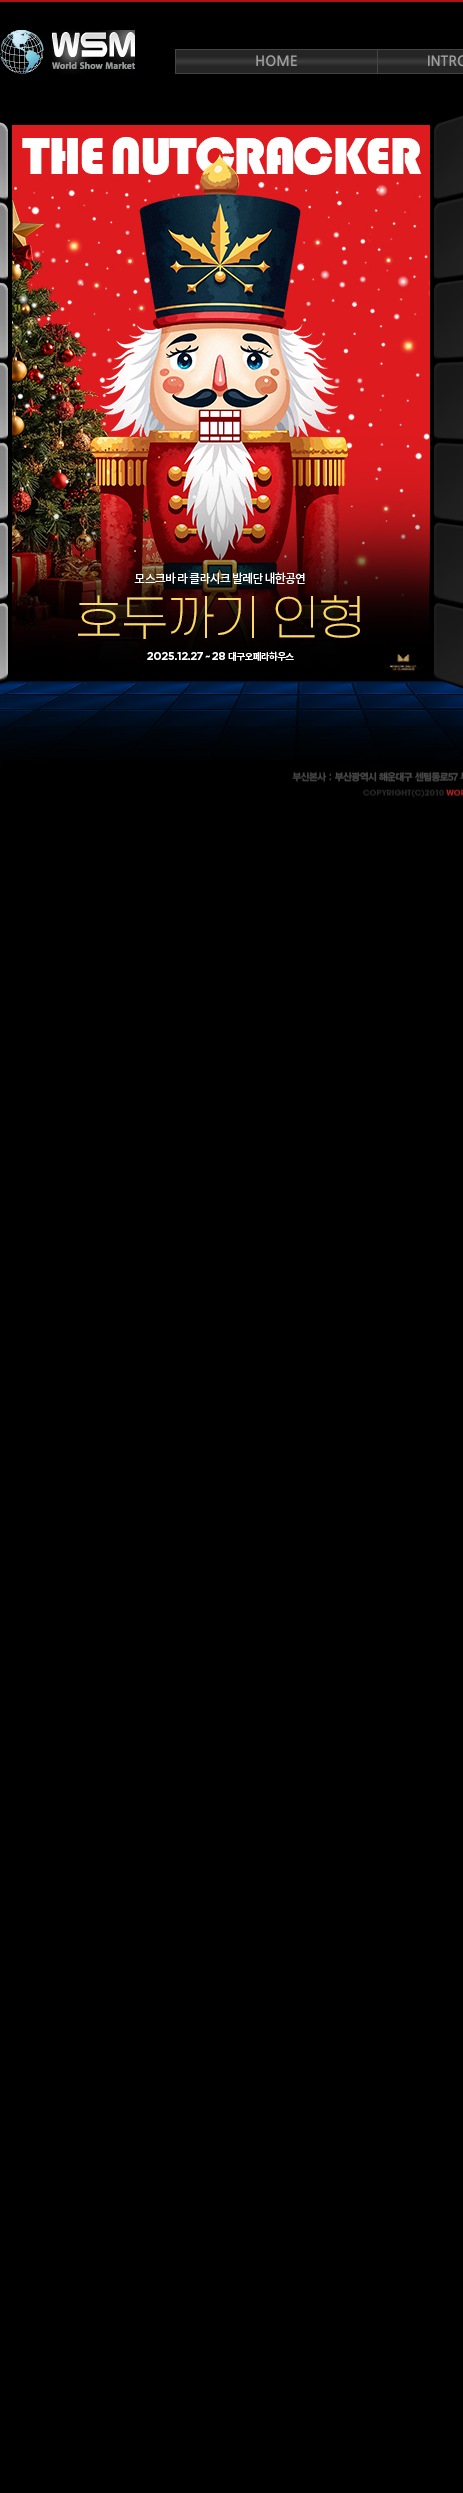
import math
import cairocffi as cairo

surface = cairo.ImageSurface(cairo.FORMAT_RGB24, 463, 2493)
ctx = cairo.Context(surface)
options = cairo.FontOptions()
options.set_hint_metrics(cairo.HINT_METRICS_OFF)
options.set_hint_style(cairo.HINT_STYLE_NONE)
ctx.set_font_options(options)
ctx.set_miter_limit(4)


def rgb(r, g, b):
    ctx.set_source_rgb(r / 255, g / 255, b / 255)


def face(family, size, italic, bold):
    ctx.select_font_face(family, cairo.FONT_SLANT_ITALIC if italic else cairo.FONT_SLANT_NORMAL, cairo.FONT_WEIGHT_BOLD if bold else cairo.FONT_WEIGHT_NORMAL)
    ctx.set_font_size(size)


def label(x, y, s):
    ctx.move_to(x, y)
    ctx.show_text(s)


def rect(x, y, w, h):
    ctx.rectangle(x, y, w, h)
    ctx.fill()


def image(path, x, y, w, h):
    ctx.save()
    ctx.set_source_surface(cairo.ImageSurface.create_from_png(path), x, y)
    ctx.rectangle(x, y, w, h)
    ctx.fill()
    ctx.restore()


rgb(0, 0, 0)
ctx.paint()
rgb(173, 18, 24)
rect(0, 0, 463, 2)
image('image0.png', 0, 115, 463, 656)
image('image1.png', 0, 30, 135, 44)
image('image2.png', 176, 50, 287, 23)
ctx.rectangle(175.5, 49.5, 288, 24)
rgb(68, 68, 68)
ctx.set_line_width(1)
ctx.stroke()
rect(377, 50, 1, 23)
face('NanumGothic', 14, 0, 1)
rgb(158, 158, 158)
label(255, 66, 'HOME')
label(427, 66, 'INTRO')
image('image3.png', 12, 125, 418, 556)
image('image4.png', 1, 760, 462, 38)
surface.write_to_png('render.png')
